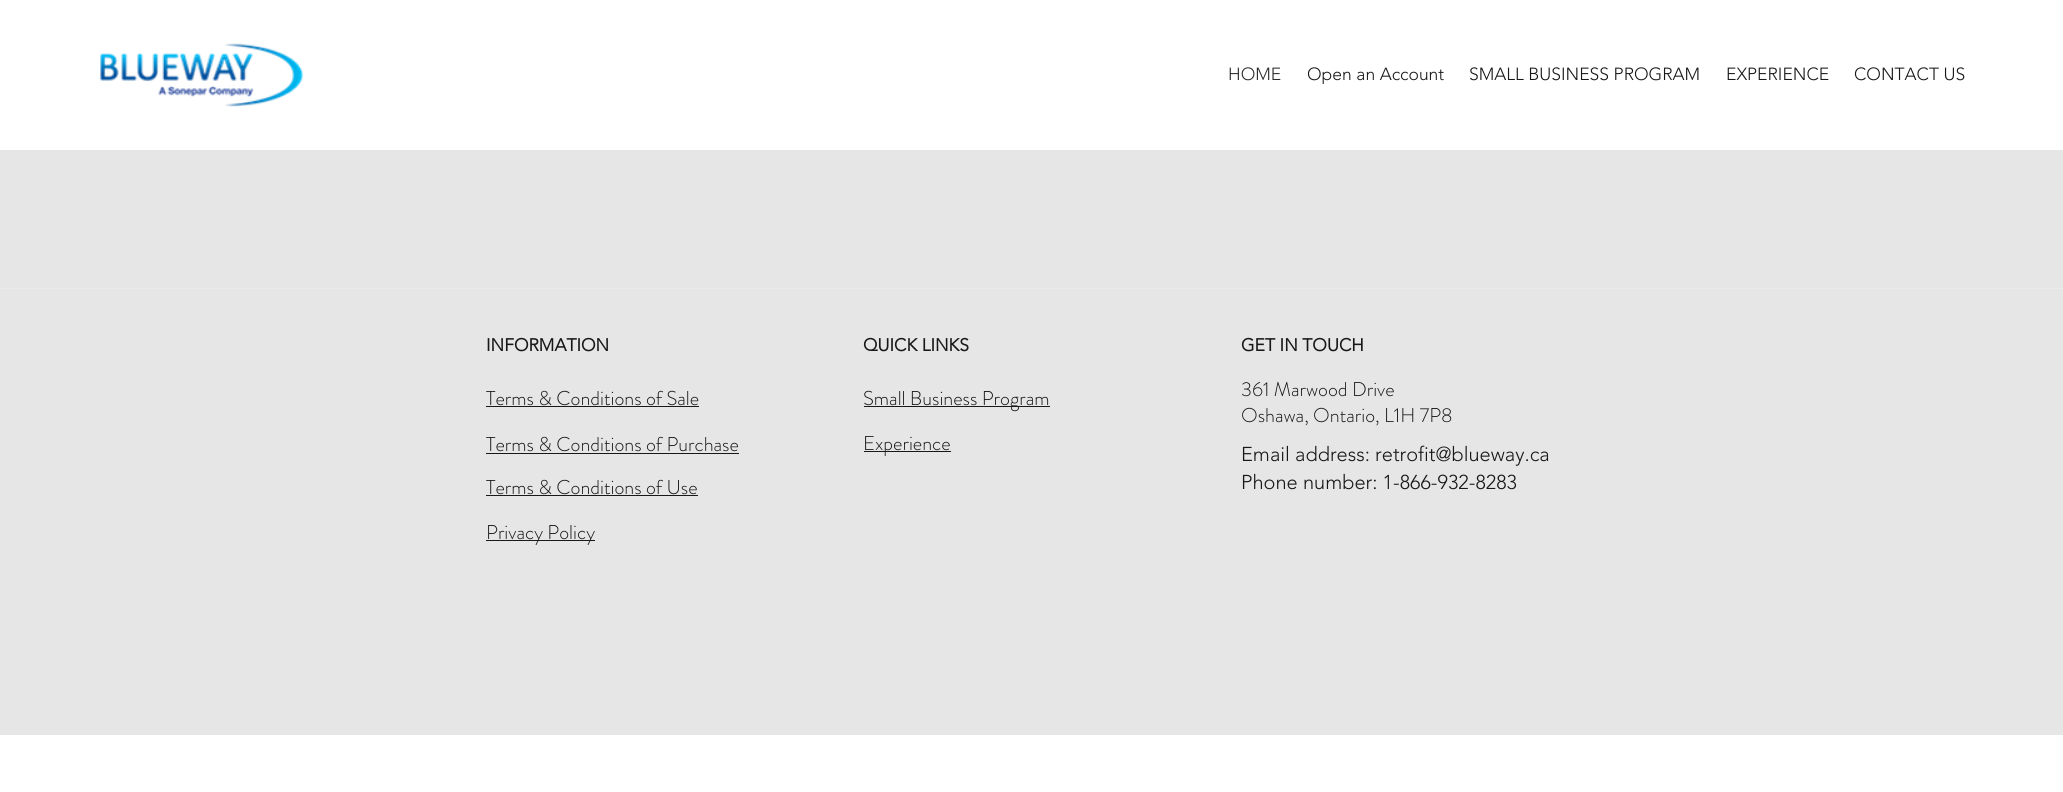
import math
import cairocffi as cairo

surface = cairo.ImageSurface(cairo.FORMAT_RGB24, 2063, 792)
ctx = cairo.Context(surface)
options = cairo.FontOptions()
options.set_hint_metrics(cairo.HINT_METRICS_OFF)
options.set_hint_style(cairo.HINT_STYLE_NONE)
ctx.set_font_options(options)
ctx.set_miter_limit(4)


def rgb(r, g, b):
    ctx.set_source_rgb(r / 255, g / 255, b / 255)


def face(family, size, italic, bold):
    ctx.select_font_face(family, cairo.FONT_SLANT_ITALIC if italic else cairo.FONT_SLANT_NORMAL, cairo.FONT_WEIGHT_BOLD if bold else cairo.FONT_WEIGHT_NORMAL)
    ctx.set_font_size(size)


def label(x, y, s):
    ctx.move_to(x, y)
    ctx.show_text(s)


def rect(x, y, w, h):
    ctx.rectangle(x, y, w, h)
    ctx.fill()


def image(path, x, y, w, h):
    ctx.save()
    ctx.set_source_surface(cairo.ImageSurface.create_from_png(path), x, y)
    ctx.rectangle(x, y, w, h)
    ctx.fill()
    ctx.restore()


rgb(255, 255, 255)
ctx.paint()
image('image0.png', 100, 43, 204, 64)
face('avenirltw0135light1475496 Light', 17.5, 0, 0)
rgb(44, 44, 44)
label(1228, 80, 'HOME')
rgb(24, 24, 24)
label(1307, 80, 'Open an Account')
label(1469, 80, 'SMALL BUSINESS PROGRAM')
label(1726, 80, 'EXPERIENCE')
label(1854, 80, 'CONTACT US')
rgb(230, 230, 230)
rect(0, 150, 2063, 138)
rect(0, 289, 2063, 446)
rgb(234, 234, 234)
rect(0, 288, 2063, 1)
face('avenirltw0135light1475496', 17.5, 0, 1)
rgb(24, 24, 24)
label(486, 351, 'INFORMATION')
label(863, 351, 'QUICK LINKS')
label(1241, 351, 'GET IN TOUCH')
face('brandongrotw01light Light', 20, 0, 0)
label(486, 405, 'Terms & Conditions of Sale')
rect(486, 406, 213, 1)
rect(864, 406, 186, 1)
label(863, 405, 'Small Business Program')
label(1241, 396, '361 Marwood Drive')
label(1241, 422, 'Oshawa, Ontario, L1H 7P8')
label(486, 451, 'Terms & Conditions of Purchase')
rect(486, 453, 253, 1)
rect(864, 451, 87, 1)
label(863, 450, 'Experience')
face('avenirltw0135light1475496 Light', 20, 0, 0)
label(1241, 461, 'Email address: retrofit@blueway.ca')
face('brandongrotw01light Light', 20, 0, 0)
label(486, 494, 'Terms & Conditions of Use')
rect(486, 495, 212, 1)
face('avenirltw0135light1475496 Light', 20, 0, 0)
label(1241, 489, 'Phone number: 1-866-932-8283')
rect(486, 540, 109, 1)
face('brandongrotw01light Light', 20, 0, 0)
label(486, 539, 'Privacy Policy')
surface.write_to_png('render.png')
